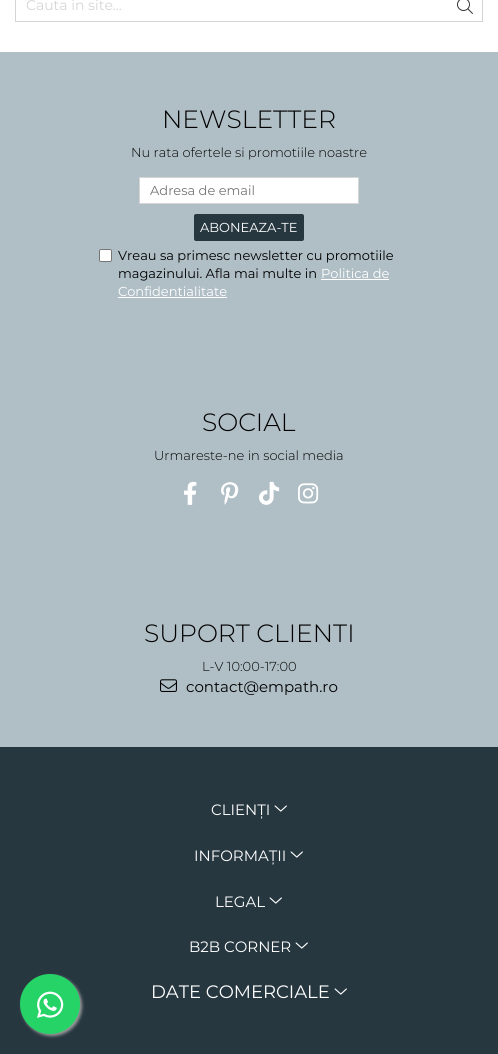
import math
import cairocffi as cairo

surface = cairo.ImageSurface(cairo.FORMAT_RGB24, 498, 1054)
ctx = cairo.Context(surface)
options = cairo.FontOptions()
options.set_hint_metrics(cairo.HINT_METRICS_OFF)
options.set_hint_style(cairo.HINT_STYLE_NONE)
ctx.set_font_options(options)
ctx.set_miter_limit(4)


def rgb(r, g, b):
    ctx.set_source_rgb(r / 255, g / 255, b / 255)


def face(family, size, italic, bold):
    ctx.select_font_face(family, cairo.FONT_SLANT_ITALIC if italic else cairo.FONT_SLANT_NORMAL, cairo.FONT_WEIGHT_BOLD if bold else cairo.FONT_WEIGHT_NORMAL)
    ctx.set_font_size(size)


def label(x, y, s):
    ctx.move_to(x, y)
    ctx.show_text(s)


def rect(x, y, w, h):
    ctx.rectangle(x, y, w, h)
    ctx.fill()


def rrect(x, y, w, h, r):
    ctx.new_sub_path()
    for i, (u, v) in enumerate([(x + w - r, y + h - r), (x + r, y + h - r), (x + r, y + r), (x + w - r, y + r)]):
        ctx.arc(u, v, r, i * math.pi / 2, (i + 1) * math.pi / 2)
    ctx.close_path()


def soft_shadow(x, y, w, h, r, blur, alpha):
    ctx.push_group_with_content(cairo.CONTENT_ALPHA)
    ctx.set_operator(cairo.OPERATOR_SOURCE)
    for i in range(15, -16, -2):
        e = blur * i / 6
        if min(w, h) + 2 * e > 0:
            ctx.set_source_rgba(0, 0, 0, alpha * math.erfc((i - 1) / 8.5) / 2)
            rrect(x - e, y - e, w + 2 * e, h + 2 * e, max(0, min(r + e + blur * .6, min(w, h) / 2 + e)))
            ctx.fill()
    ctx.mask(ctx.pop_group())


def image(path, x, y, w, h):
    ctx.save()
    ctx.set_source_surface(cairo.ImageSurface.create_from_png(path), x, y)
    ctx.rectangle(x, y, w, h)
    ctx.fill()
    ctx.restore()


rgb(255, 255, 255)
ctx.paint()
ctx.rectangle(15.5, -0.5, 467, 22)
rgb(213, 213, 213)
ctx.set_line_width(1)
ctx.stroke()
face('Montserrat', 14, 0, 0)
label(26, 10, 'Cauta in site...')
image('image0.png', 457, 0, 16, 14)
rgb(176, 190, 197)
rect(0, 52, 498, 695)
face('Montserrat Light', 25, 0, 0)
rgb(0, 0, 0)
label(162, 128, 'NEWSLETTER')
face('Montserrat Light', 13, 0, 0)
label(131, 157, 'Nu rata ofertele si promotiile noastre')
rgb(255, 255, 255)
ctx.rectangle(139.5, 177.5, 219, 26)
ctx.fill_preserve()
rgb(213, 213, 213)
ctx.stroke()
face('Montserrat', 13, 0, 0)
rgb(117, 117, 117)
label(150, 195, 'Adresa de email')
rgb(38, 55, 64)
rrect(194, 214, 110, 27, 2)
ctx.fill()
rgb(255, 255, 255)
label(200, 232, 'ABONEAZA-TE')
rrect(99.5, 249.5, 12, 12, 1.5)
ctx.fill_preserve()
rgb(118, 118, 118)
ctx.stroke()
rgb(0, 0, 0)
label(118, 260, 'Vreau sa primesc newsletter cu promotiile')
label(118, 278, 'magazinului. Afla mai multe in')
rgb(255, 255, 255)
label(321, 278, 'Politica de')
rect(321, 279, 68, 1)
label(118, 296, 'Confidentialitate')
rect(118, 297, 109, 1)
face('Montserrat Light', 25, 0, 0)
rgb(0, 0, 0)
label(202, 431, 'SOCIAL')
face('Montserrat Light', 13, 0, 0)
label(154, 460, 'Urmareste-ne in social media')
image('image1.png', 184, 481, 13, 24)
image('image2.png', 221, 482, 18, 23)
image('image3.png', 259, 481, 21, 24)
image('image4.png', 298, 483, 21, 21)
face('Montserrat Light', 25, 0, 0)
label(144, 642, 'SUPORT CLIENTI')
face('Montserrat Light', 13, 0, 0)
label(202, 671, 'L-V 10:00-17:00')
image('image5.png', 160, 679, 17, 13)
face('Montserrat', 15, 0, 0)
label(186, 692, 'contact@empath.ro')
rgb(38, 55, 64)
rect(0, 747, 498, 307)
rgb(255, 255, 255)
label(211, 815, 'CLIENȚI')
image('image6.png', 274, 805, 13, 7)
label(194, 861, 'INFORMAȚII')
image('image6.png', 290, 851, 13, 7)
label(215, 907, 'LEGAL')
image('image6.png', 269, 897, 13, 7)
label(189, 952, 'B2B CORNER')
image('image6.png', 295, 942, 13, 7)
face('Montserrat', 18, 0, 0)
label(151, 998, 'DATE COMERCIALE')
image('image6.png', 334, 988, 13, 7)
rgb(153, 153, 153)
soft_shadow(22, 976, 60, 60, 30, 1.5, 1)
rgb(37, 211, 102)
ctx.arc(50, 1004, 30, 0, 2 * math.pi)
ctx.fill()
image('image7.png', 37, 991, 27, 27)
surface.write_to_png('render.png')
